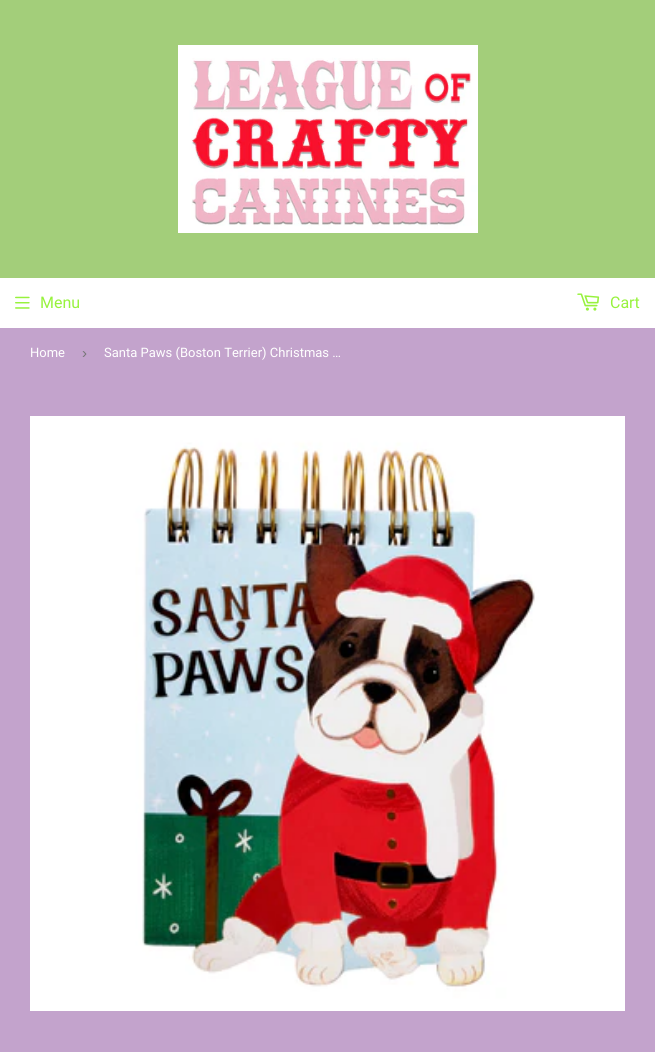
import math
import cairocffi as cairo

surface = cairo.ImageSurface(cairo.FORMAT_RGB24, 655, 1052)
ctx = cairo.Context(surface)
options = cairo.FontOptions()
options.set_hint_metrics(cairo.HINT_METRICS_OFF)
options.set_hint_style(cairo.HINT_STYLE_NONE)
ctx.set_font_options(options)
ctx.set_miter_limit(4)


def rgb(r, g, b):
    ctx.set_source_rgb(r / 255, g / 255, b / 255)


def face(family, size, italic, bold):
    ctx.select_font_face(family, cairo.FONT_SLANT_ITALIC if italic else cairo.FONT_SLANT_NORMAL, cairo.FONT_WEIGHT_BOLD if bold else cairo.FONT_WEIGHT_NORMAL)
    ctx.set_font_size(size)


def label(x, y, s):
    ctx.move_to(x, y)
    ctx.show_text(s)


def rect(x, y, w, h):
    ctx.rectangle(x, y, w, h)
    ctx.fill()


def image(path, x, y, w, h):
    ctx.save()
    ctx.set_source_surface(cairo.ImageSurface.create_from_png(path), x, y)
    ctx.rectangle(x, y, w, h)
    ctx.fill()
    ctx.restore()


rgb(195, 163, 204)
ctx.paint()
rgb(163, 206, 122)
rect(0, 0, 655, 278)
image('image0.png', 178, 45, 300, 188)
rgb(255, 255, 255)
rect(0, 278, 655, 50)
image('image1.png', 15, 296, 15, 13)
face('Roboto', 16, 0, 0)
rgb(151, 242, 61)
label(40, 308, 'Menu')
image('image2.png', 577, 293, 23, 18)
label(610, 308, 'Cart')
face('Roboto', 13, 0, 0)
rgb(255, 255, 255)
label(30, 357, 'Home')
face('Liberation Sans', 15, 0, 0)
rgb(118, 118, 118)
label(82, 358, '›')
face('Roboto', 13, 0, 0)
rgb(255, 255, 255)
label(104, 357, 'Santa Paws (Boston Terrier) Christmas …')
image('image3.png', 30, 416, 595, 595)
surface.write_to_png('render.png')
